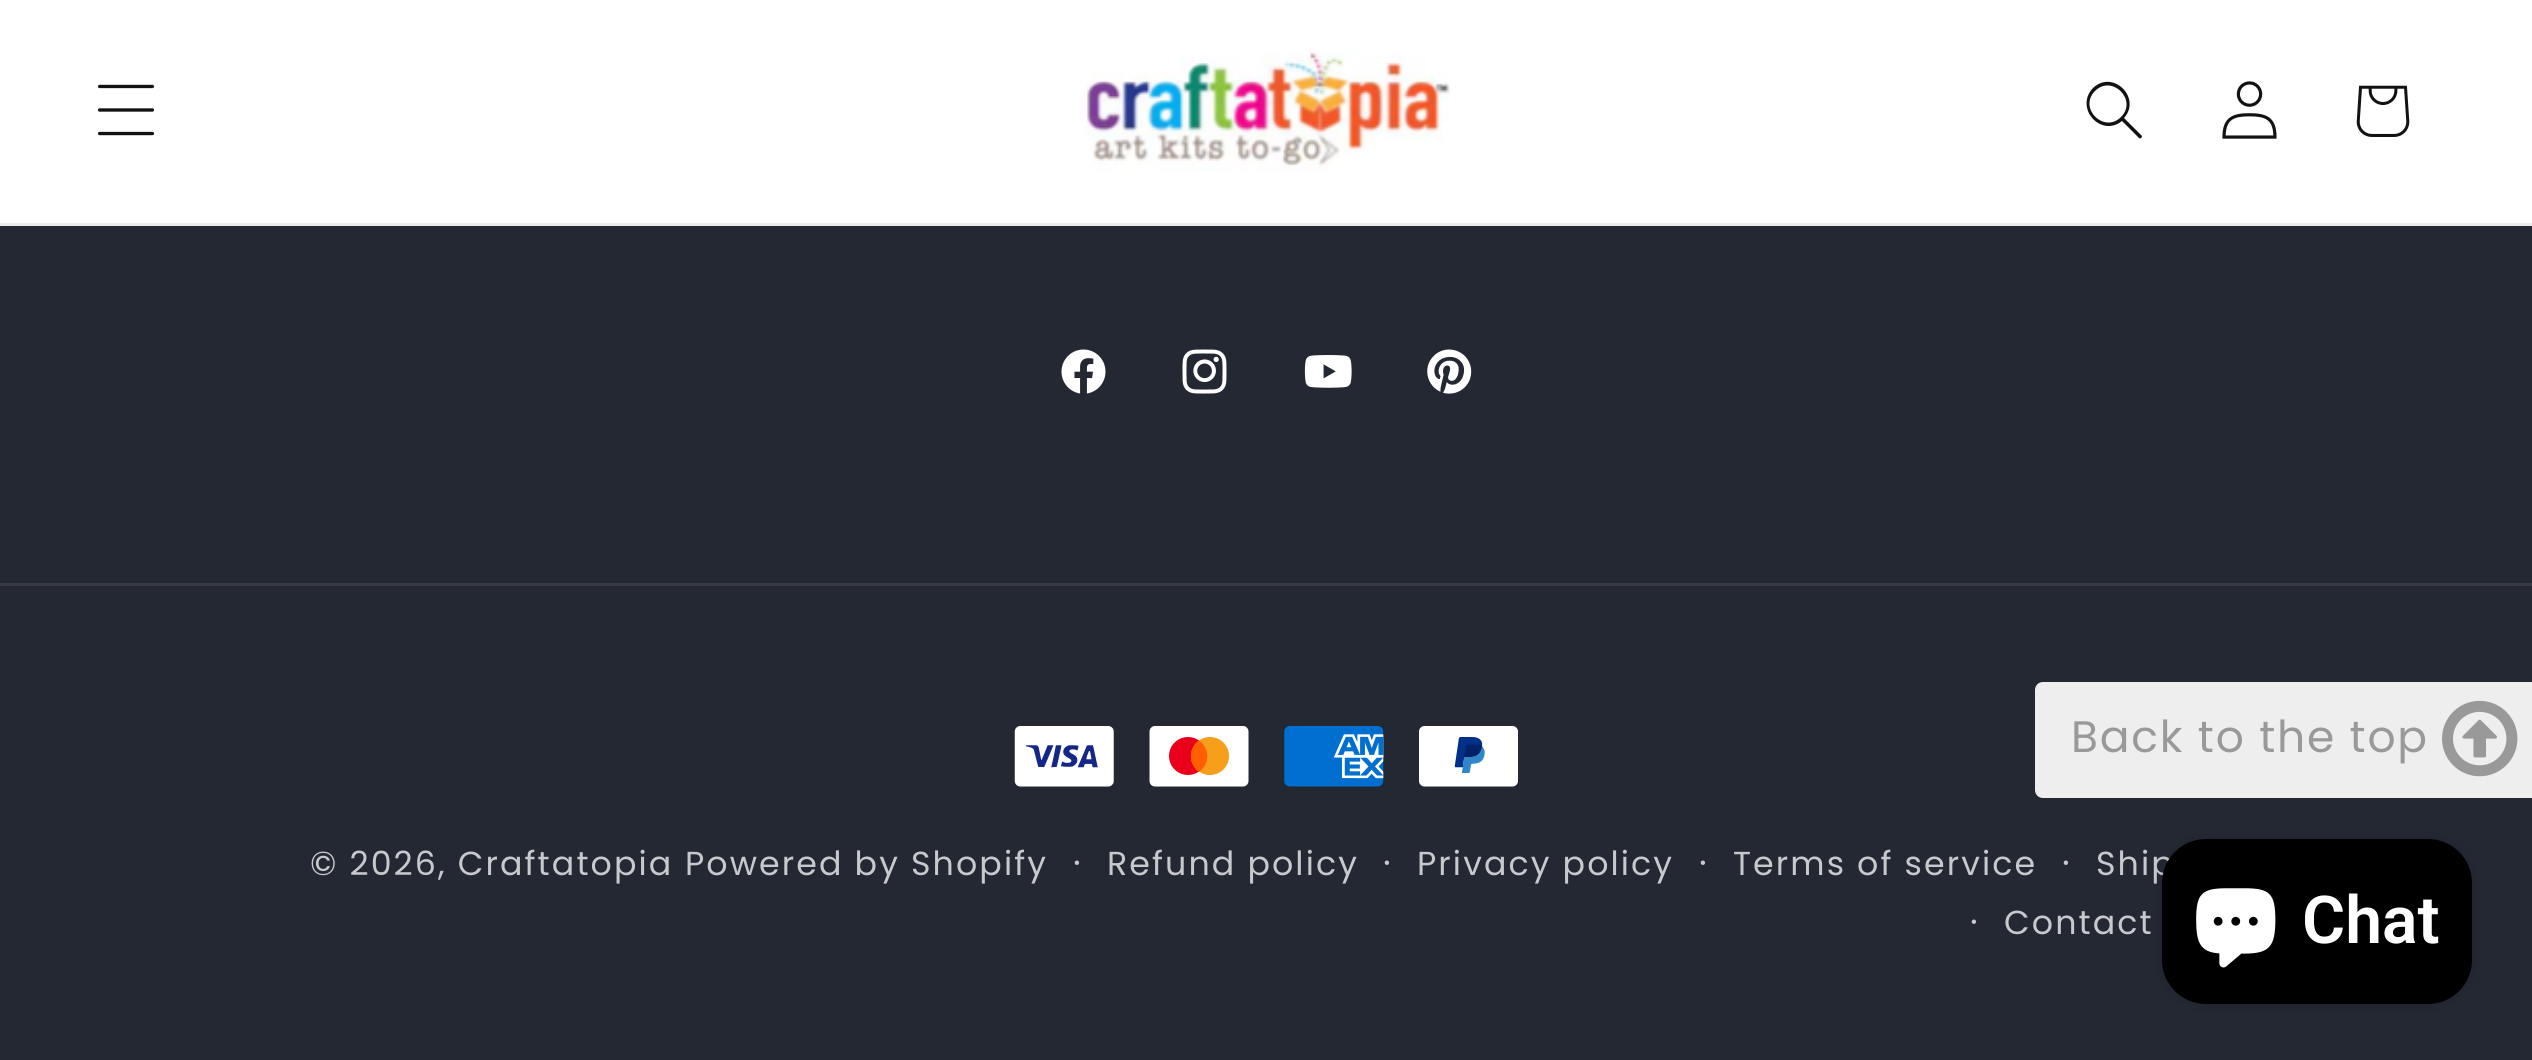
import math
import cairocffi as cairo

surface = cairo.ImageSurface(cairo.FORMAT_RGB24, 2532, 1060)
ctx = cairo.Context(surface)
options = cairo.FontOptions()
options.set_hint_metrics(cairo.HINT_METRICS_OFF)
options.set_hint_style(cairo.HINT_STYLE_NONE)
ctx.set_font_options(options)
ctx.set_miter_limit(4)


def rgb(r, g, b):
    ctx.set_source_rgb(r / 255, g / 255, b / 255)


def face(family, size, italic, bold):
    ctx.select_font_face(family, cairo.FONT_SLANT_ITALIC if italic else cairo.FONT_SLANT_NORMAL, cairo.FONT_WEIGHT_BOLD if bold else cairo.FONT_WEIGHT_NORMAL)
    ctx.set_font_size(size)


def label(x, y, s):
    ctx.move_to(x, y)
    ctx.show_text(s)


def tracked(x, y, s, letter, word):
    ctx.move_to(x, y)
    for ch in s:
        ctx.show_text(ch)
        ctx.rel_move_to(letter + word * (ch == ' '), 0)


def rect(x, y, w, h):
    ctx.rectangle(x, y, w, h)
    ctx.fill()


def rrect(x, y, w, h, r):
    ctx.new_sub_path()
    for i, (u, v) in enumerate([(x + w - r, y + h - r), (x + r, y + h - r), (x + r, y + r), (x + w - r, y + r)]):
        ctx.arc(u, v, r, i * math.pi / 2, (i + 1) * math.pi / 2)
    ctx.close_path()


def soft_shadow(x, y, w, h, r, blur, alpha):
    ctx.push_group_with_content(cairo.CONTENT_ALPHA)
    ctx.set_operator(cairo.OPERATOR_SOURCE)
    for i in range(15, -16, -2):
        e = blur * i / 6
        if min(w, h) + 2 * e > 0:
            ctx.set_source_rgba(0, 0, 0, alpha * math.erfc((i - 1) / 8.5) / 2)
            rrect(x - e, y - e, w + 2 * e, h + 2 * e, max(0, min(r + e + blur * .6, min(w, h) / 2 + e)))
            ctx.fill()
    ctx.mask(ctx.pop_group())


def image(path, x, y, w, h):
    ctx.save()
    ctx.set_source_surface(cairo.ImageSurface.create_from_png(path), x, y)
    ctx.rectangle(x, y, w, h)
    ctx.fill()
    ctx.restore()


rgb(36, 40, 51)
ctx.paint()
rgb(255, 255, 255)
rect(0, 0, 2532, 223)
rgb(236, 236, 236)
rect(0, 223, 2532, 3)
image('image0.png', 97, 84, 58, 52)
image('image1.png', 1084, 49, 367, 123)
rgb(18, 18, 18)
ctx.set_fill_rule(cairo.FILL_RULE_EVEN_ODD)
ctx.new_path()
ctx.move_to(2121, 117)
ctx.curve_to(2104, 134, 2078, 108, 2095, 91)
ctx.curve_to(2112, 74, 2138, 100, 2121, 117)
ctx.move_to(2122, 121)
ctx.curve_to(2101, 138, 2074, 108, 2093, 88)
ctx.curve_to(2113, 69, 2142, 98, 2124, 118)
ctx.line_to(2142, 136)
ctx.curve_to(2142, 138, 2140, 139, 2139, 138)
ctx.close_path()
ctx.fill()
image('image2.png', 2222, 81, 55, 58)
image('image3.png', 2356, 85, 54, 52)
rgb(238, 238, 238)
ctx.new_path()
ctx.move_to(2043, 682)
ctx.line_to(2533, 682)
ctx.line_to(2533, 798)
ctx.line_to(2043, 798)
ctx.curve_to(2038.5, 798, 2035, 794.5, 2035, 790)
ctx.line_to(2035, 690)
ctx.curve_to(2035, 685.5, 2038.5, 682, 2043, 682)
ctx.close_path()
ctx.fill()
face('Poppins', 44, 0, 0)
rgb(153, 153, 153)
tracked(2071, 752, 'Back to the top', 1.8, 0)
image('image4.png', 2442, 700, 76, 77)
image('image5.png', 1061, 349, 45, 45)
image('image6.png', 1182, 349, 45, 45)
image('image7.png', 1304, 355, 48, 33)
image('image8.png', 1427, 349, 45, 45)
rgb(54, 57, 67)
rect(0, 583, 2532, 3)
image('image9.png', 1014, 726, 100, 61)
image('image10.png', 1149, 726, 100, 61)
image('image11.png', 1284, 726, 100, 61)
image('image12.png', 1419, 726, 99, 61)
face('Poppins', 33.25, 0, 0)
rgb(200, 201, 204)
tracked(310, 875, '© 2026, Craftatopia', 2.1, 0)
tracked(685, 875, 'Powered by Shopify', 2.1, 0)
face('Poppins', 36, 0, 0)
tracked(1073, 875, '·', 2.1, 0)
face('Poppins', 33.25, 0, 0)
tracked(1107, 875, 'Refund policy', 2.1, 0)
face('Poppins', 36, 0, 0)
tracked(1383, 875, '·', 2.1, 0)
face('Poppins', 33.25, 0, 0)
tracked(1417, 875, 'Privacy policy', 2.1, 0)
face('Poppins', 36, 0, 0)
tracked(1699, 875, '·', 2.1, 0)
face('Poppins', 33.25, 0, 0)
tracked(1733, 875, 'Terms of service', 2.1, 0)
face('Poppins', 36, 0, 0)
tracked(2062, 875, '·', 2.1, 0)
face('Poppins', 33.25, 0, 0)
tracked(2096, 875, 'Ship', 2.1, 0)
face('Poppins', 36, 0, 0)
tracked(1970, 934, '·', 2.1, 0)
face('Poppins', 33.25, 0, 0)
tracked(2004, 934, 'Contact', 2.1, 0)
rgb(0, 0, 0)
soft_shadow(2162, 839, 310, 165, 44, 7, 0.15)
rgb(0, 0, 0)
rrect(2162, 839, 310, 165, 44)
ctx.fill()
image('image13.png', 2196, 888, 80, 80)
face('Roboto SemiBold', 66, 0, 0)
rgb(255, 255, 255)
label(2302, 943, 'Chat')
surface.write_to_png('render.png')
